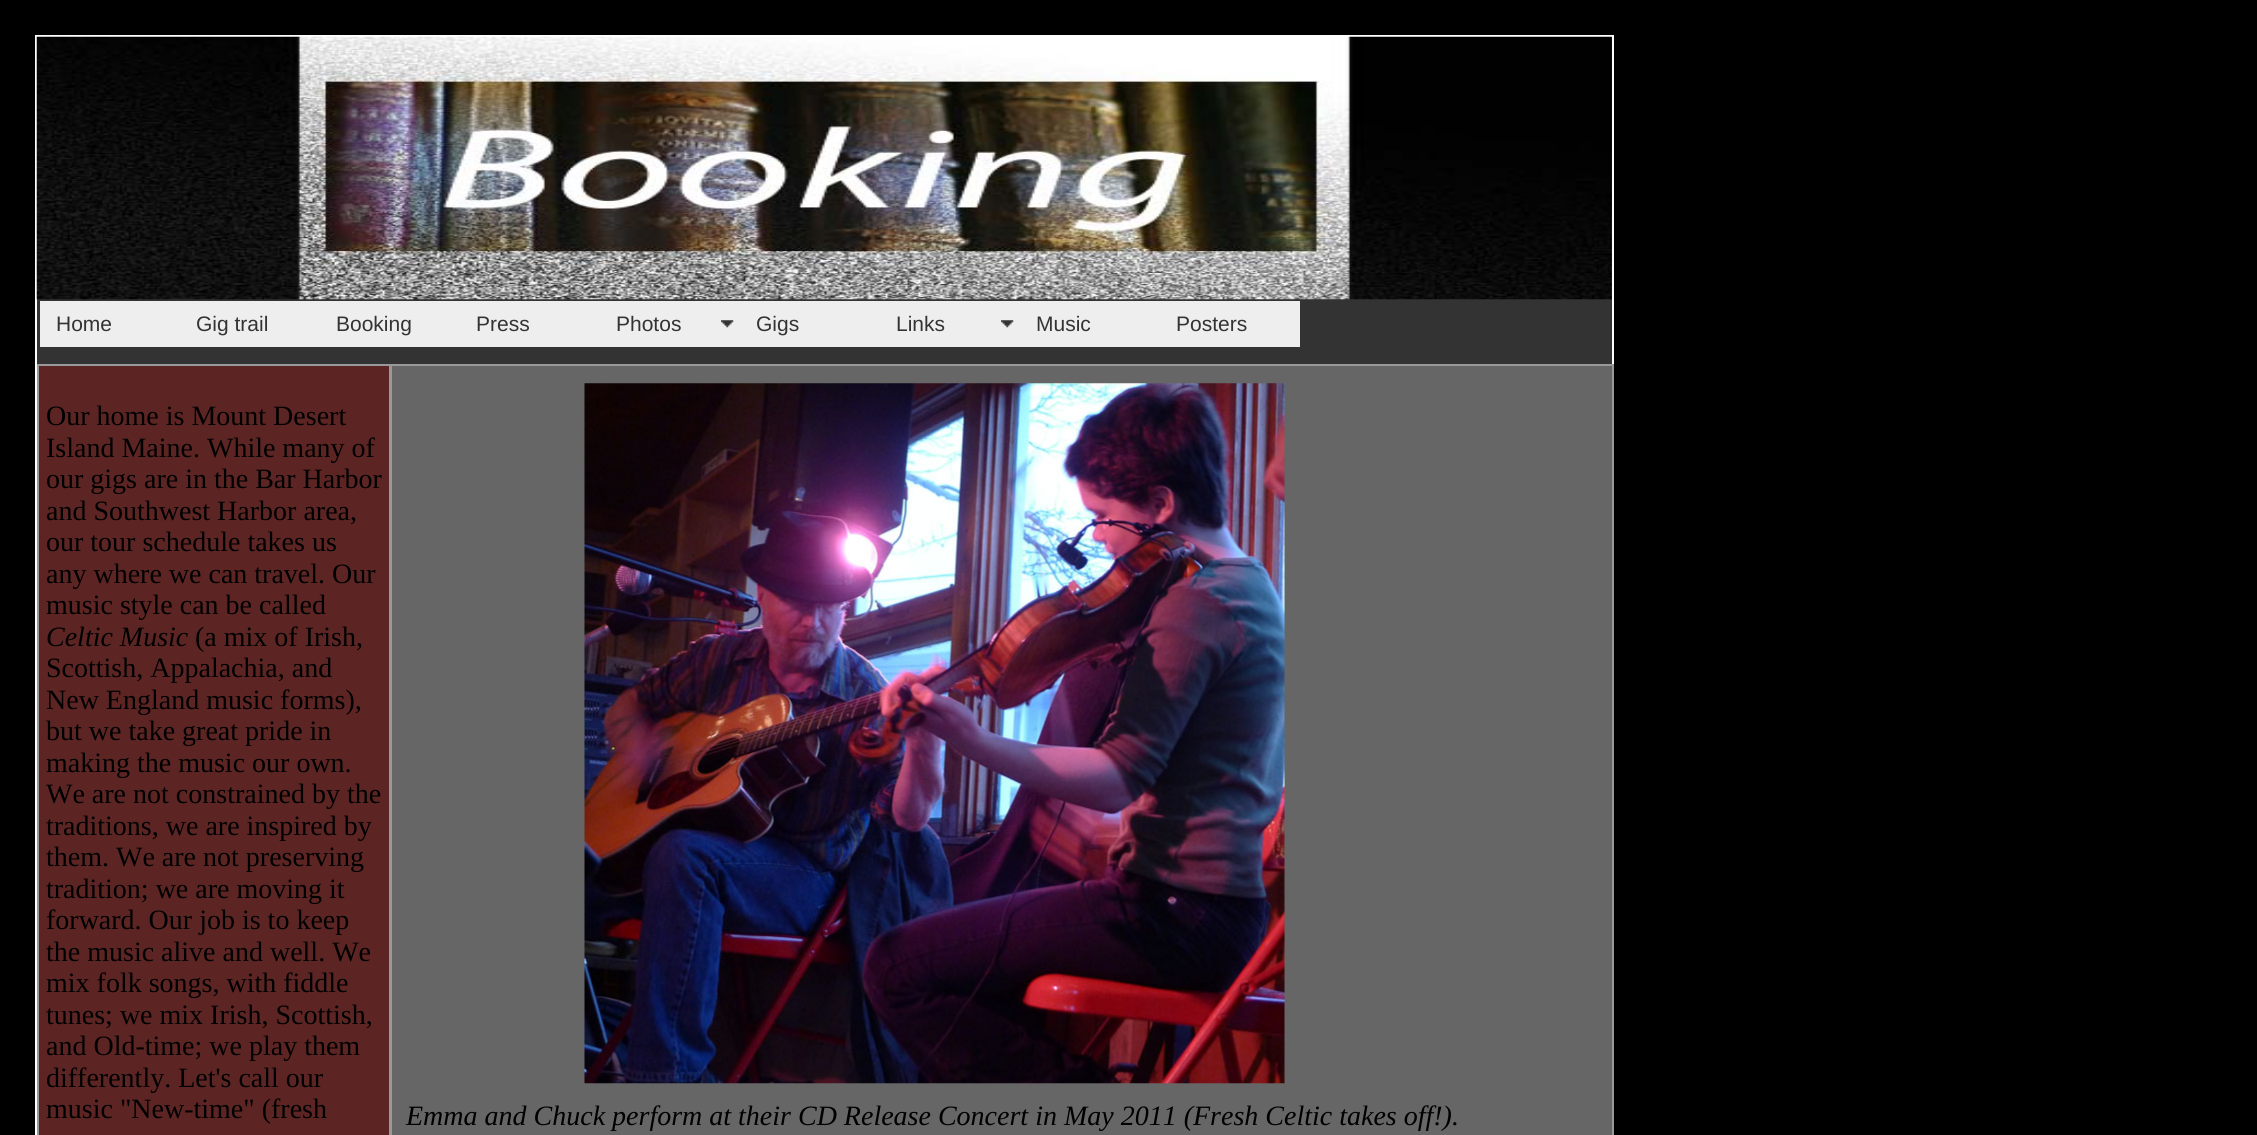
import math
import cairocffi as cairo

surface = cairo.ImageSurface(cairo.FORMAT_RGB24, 2257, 1135)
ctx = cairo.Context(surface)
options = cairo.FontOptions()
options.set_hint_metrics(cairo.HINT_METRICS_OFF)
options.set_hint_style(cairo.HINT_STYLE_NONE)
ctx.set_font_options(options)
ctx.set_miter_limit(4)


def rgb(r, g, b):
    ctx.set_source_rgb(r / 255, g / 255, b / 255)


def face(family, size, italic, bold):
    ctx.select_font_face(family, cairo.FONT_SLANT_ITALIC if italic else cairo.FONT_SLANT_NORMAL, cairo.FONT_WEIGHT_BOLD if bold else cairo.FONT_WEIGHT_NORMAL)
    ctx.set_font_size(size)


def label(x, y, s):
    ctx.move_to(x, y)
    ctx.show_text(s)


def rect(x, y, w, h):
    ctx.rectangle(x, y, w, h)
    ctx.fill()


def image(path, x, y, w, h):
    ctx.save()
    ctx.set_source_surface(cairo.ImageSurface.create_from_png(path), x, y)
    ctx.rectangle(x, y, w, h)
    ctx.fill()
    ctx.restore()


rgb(0, 0, 0)
ctx.paint()
rgb(51, 51, 51)
rect(37, 37, 1575, 327)
ctx.rectangle(36, 36, 1577, 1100)
rgb(255, 255, 255)
ctx.stroke()
image('image0.png', 36, 36, 1576, 264)
rgb(238, 238, 238)
rect(40, 301, 1260, 46)
face('Liberation Sans', 21, 0, 0)
rgb(51, 51, 51)
label(56, 331, 'Home')
label(196, 331, 'Gig trail')
label(336, 331, 'Booking')
label(476, 331, 'Press')
image('image1.png', 721, 320, 13, 8)
label(616, 331, 'Photos')
label(756, 331, 'Gigs')
image('image1.png', 1001, 320, 13, 8)
label(896, 331, 'Links')
label(1036, 331, 'Music')
label(1176, 331, 'Posters')
ctx.rectangle(38, 365, 351, 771)
rgb(153, 153, 153)
ctx.stroke()
rgb(92, 37, 35)
rect(39, 366, 350, 769)
face('Liberation Serif', 28, 0, 0)
rgb(0, 0, 0)
label(46, 425, 'Our home is Mount Desert')
label(46, 457, 'Island Maine. While many of')
label(46, 488, 'our gigs are in the Bar Harbor')
label(46, 520, 'and Southwest Harbor area,')
label(46, 551, 'our tour schedule takes us')
label(46, 583, 'any where we can travel. Our')
label(46, 614, 'music style can be called')
face('Liberation Serif', 28, 1, 0)
label(46, 646, 'Celtic Music')
face('Liberation Serif', 28, 0, 0)
label(195, 646, '(a mix of Irish,')
label(46, 677, 'Scottish, Appalachia, and')
label(46, 709, 'New England music forms),')
label(46, 740, 'but we take great pride in')
label(46, 772, 'making the music our own.')
label(46, 803, 'We are not constrained by the')
label(46, 835, 'traditions, we are inspired by')
label(46, 866, 'them. We are not preserving')
label(46, 898, 'tradition; we are moving it')
label(46, 929, 'forward. Our job is to keep')
label(46, 961, 'the music alive and well. We')
label(46, 992, 'mix folk songs, with fiddle')
label(46, 1024, 'tunes; we mix Irish, Scottish,')
label(46, 1055, 'and Old-time; we play them')
label(46, 1087, 'differently. Let\'s call our')
label(46, 1118, 'music "New-time" (fresh')
rgb(102, 102, 102)
ctx.rectangle(391, 365, 1222, 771)
ctx.fill_preserve()
rgb(153, 153, 153)
ctx.stroke()
image('image2.png', 584, 383, 701, 701)
face('Liberation Serif', 28, 1, 0)
rgb(0, 0, 0)
label(406, 1125, 'Emma and Chuck perform at their CD Release Concert in May 2011 (Fresh Celtic takes off!).')
surface.write_to_png('render.png')
